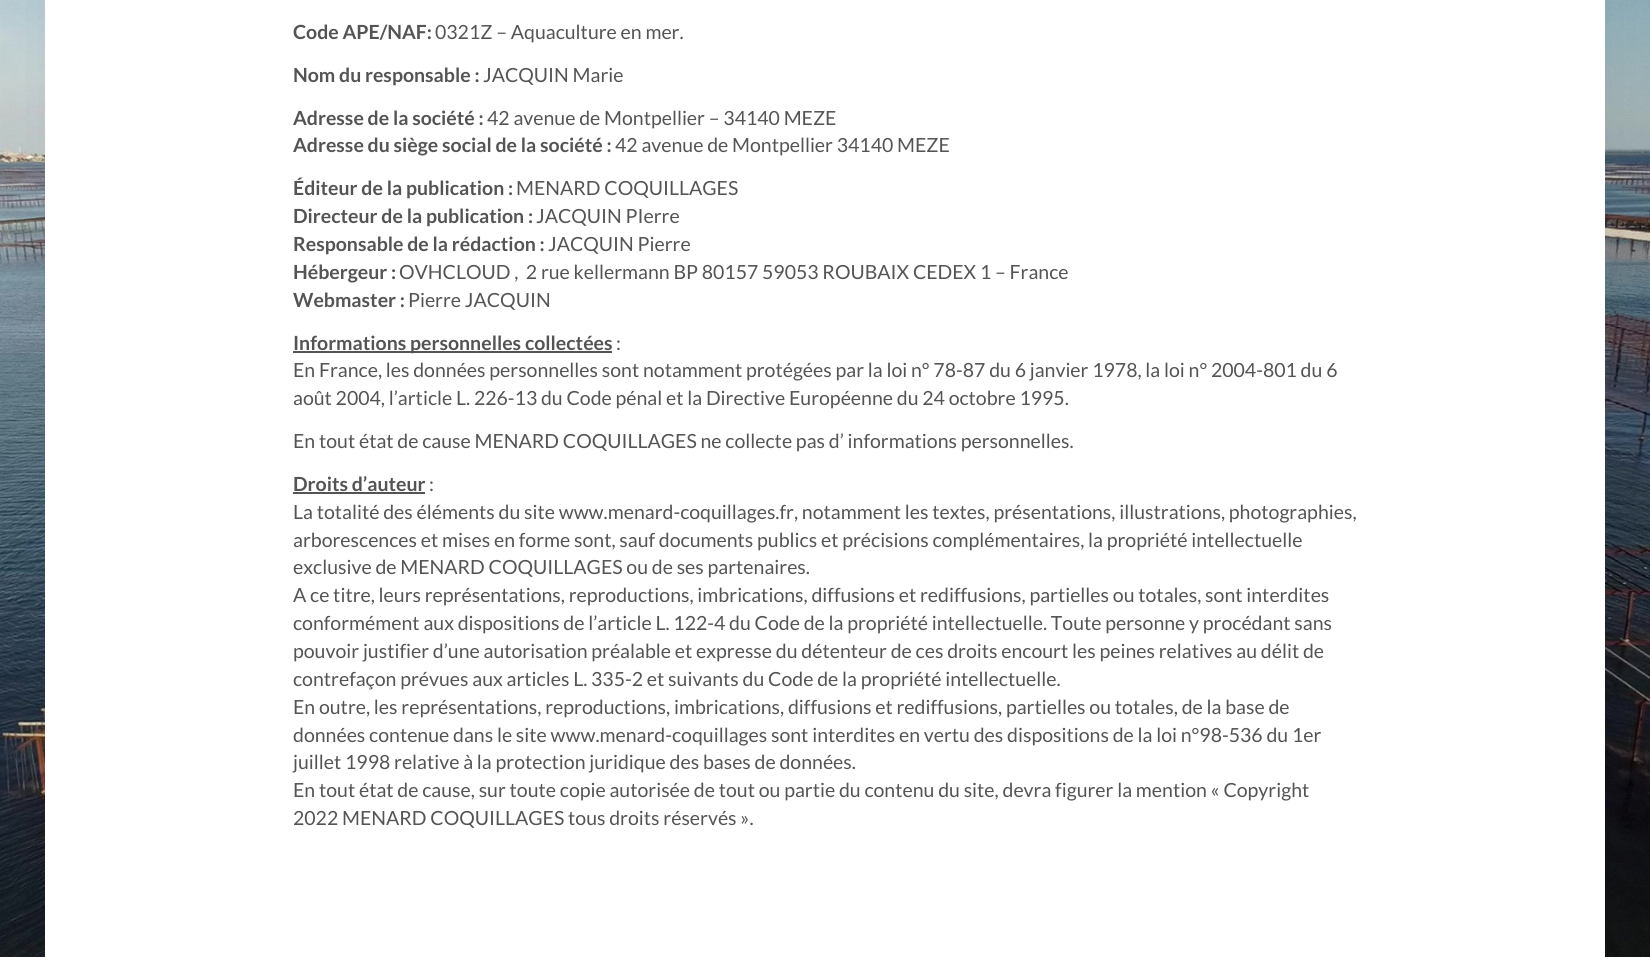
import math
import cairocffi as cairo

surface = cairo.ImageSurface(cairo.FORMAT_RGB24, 1650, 957)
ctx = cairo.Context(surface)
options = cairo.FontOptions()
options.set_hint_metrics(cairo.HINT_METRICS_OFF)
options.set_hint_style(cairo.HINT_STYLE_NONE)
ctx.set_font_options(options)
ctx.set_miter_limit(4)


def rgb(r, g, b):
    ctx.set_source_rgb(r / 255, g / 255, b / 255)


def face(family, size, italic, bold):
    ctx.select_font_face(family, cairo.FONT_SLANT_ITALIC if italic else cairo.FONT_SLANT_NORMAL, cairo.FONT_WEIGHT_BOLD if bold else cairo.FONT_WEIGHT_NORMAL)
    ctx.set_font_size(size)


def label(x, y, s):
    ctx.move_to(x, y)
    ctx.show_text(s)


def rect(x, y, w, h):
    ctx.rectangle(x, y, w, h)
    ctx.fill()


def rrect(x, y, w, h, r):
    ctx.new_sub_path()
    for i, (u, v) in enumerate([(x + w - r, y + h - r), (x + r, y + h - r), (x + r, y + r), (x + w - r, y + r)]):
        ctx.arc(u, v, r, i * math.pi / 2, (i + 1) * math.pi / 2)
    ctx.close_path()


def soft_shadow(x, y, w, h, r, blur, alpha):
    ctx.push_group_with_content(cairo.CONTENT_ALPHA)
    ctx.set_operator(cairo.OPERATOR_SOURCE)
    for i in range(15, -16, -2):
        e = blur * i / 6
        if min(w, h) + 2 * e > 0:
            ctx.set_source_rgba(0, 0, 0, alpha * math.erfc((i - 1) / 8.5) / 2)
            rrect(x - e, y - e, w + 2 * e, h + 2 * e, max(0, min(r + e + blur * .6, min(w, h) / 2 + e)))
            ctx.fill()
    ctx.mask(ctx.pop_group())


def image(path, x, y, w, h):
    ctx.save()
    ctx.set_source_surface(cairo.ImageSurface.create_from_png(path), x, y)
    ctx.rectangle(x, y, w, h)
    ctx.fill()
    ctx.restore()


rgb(255, 255, 255)
ctx.paint()
image('image0.png', 0, 0, 1650, 957)
rgb(0, 0, 0)
soft_shadow(45, -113, 1560, 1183, 0, 37.5, 0.06)
rgb(255, 255, 255)
rect(45, 0, 1560, 957)
face('Lato', 19.5, 0, 1)
rgb(84, 84, 84)
label(293, 39, 'Code APE/NAF:')
face('Lato', 19.5, 0, 0)
label(435, 39, '0321Z – Aquaculture en mer.')
face('Lato', 19.5, 0, 1)
label(293, 82, 'Nom du responsable :')
face('Lato', 19.5, 0, 0)
label(483, 82, 'JACQUIN Marie')
face('Lato', 19.5, 0, 1)
label(293, 125, 'Adresse de la société :')
face('Lato', 19.5, 0, 0)
label(487, 125, '42 avenue de Montpellier – 34140 MEZE')
face('Lato', 19.5, 0, 1)
label(293, 152, 'Adresse du siège social de la société :')
face('Lato', 19.5, 0, 0)
label(615, 152, '42 avenue de Montpellier 34140 MEZE')
face('Lato', 19.5, 0, 1)
label(293, 195, 'Éditeur de la publication :')
face('Lato', 19.5, 0, 0)
label(516, 195, 'MENARD COQUILLAGES')
face('Lato', 19.5, 0, 1)
label(293, 223, 'Directeur de la publication :')
face('Lato', 19.5, 0, 0)
label(536, 223, 'JACQUIN PIerre')
face('Lato', 19.5, 0, 1)
label(293, 251, 'Responsable de la rédaction :')
face('Lato', 19.5, 0, 0)
label(548, 251, 'JACQUIN Pierre')
face('Lato', 19.5, 0, 1)
label(293, 279, 'Hébergeur :')
face('Lato', 19.5, 0, 0)
label(399, 279, 'OVHCLOUD ,  2 rue kellermann BP 80157 59053 ROUBAIX CEDEX 1 – France')
face('Lato', 19.5, 0, 1)
label(293, 307, 'Webmaster :')
face('Lato', 19.5, 0, 0)
label(408, 307, 'Pierre JACQUIN')
rect(293, 351, 319, 2)
face('Lato', 19.5, 0, 1)
label(293, 350, 'Informations personnelles collectées')
face('Lato', 19.5, 0, 0)
label(616, 350, ':')
label(293, 377, 'En France, les données personnelles sont notamment protégées par la loi n° 78-87 du 6 janvier 1978, la loi n° 2004-801 du 6')
label(293, 405, 'août 2004, l’article L. 226-13 du Code pénal et la Directive Européenne du 24 octobre 1995.')
label(293, 448, 'En tout état de cause MENARD COQUILLAGES ne collecte pas d’ informations personnelles.')
face('Lato', 19.5, 0, 1)
label(293, 491, 'Droits d’auteur')
rect(293, 492, 132, 2)
face('Lato', 19.5, 0, 0)
label(429, 491, ':')
label(293, 519, 'La totalité des éléments du site www.menard-coquillages.fr, notamment les textes, présentations, illustrations, photographies,')
label(293, 547, 'arborescences et mises en forme sont, sauf documents publics et précisions complémentaires, la propriété intellectuelle')
label(293, 574, 'exclusive de MENARD COQUILLAGES ou de ses partenaires.')
label(293, 602, 'A ce titre, leurs représentations, reproductions, imbrications, diffusions et rediffusions, partielles ou totales, sont interdites')
label(293, 630, 'conformément aux dispositions de l’article L. 122-4 du Code de la propriété intellectuelle. Toute personne y procédant sans')
label(293, 658, 'pouvoir justifier d’une autorisation préalable et expresse du détenteur de ces droits encourt les peines relatives au délit de')
label(293, 686, 'contrefaçon prévues aux articles L. 335-2 et suivants du Code de la propriété intellectuelle.')
label(293, 714, 'En outre, les représentations, reproductions, imbrications, diffusions et rediffusions, partielles ou totales, de la base de')
label(293, 742, 'données contenue dans le site www.menard-coquillages sont interdites en vertu des dispositions de la loi n°98-536 du 1er')
label(293, 769, 'juillet 1998 relative à la protection juridique des bases de données.')
label(293, 797, 'En tout état de cause, sur toute copie autorisée de tout ou partie du contenu du site, devra figurer la mention « Copyright')
label(293, 825, '2022 MENARD COQUILLAGES tous droits réservés ».')
surface.write_to_png('render.png')
